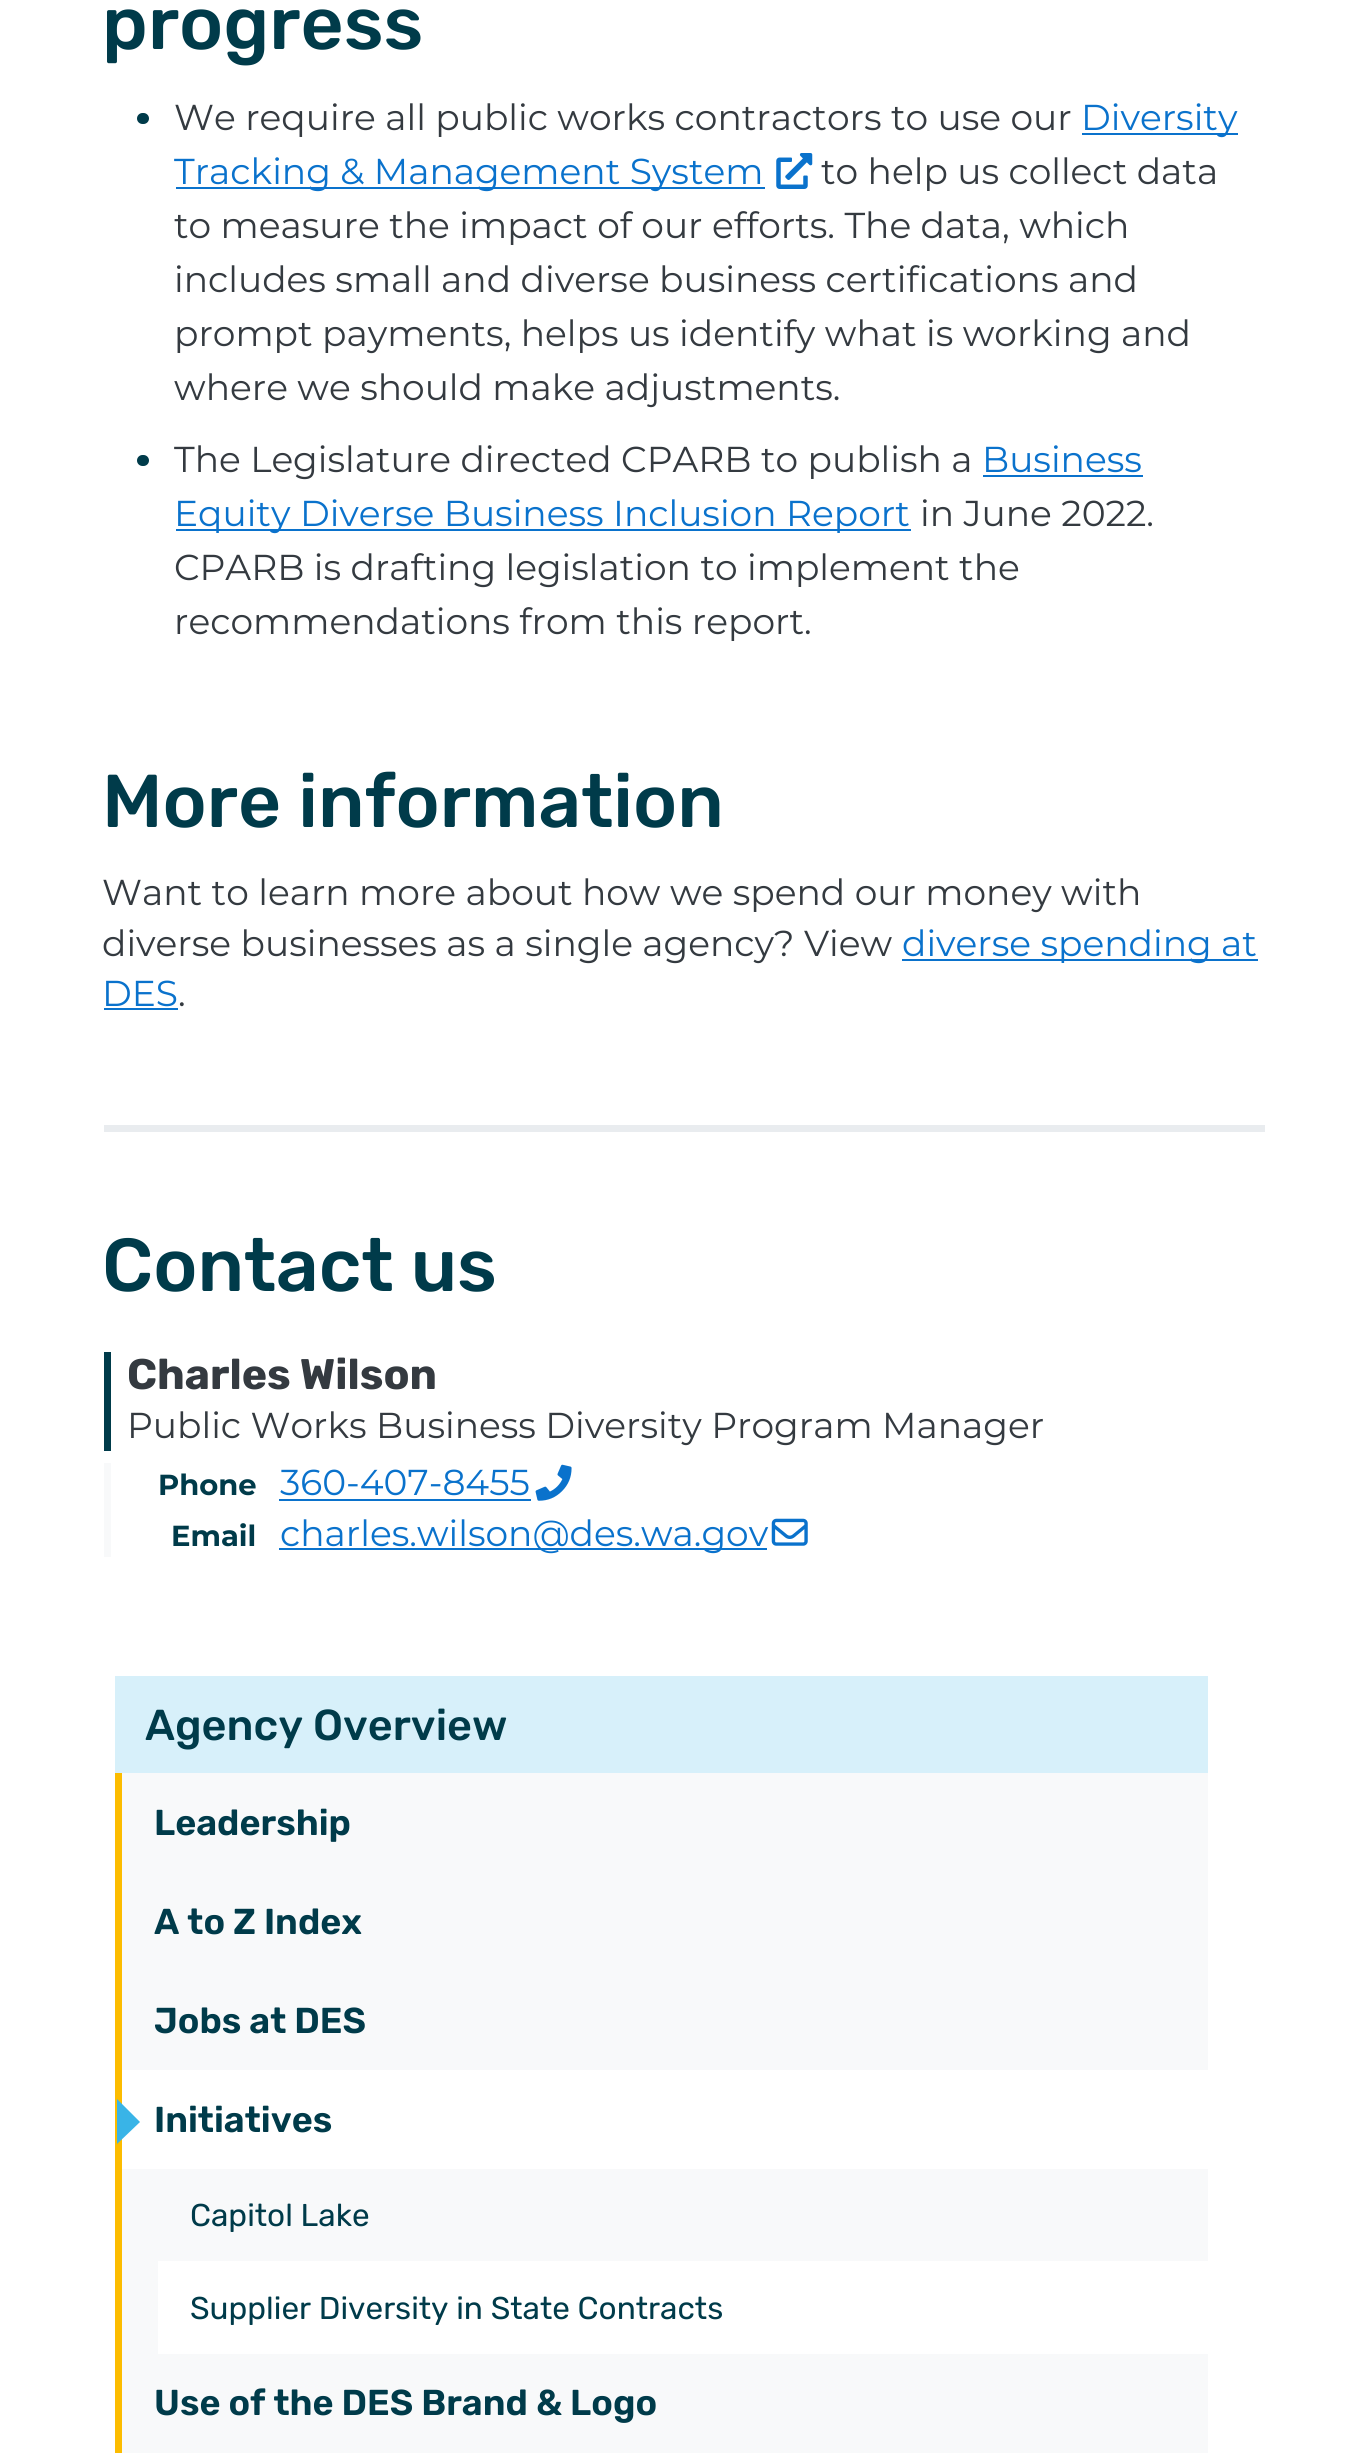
import math
import cairocffi as cairo

surface = cairo.ImageSurface(cairo.FORMAT_RGB24, 1365, 2464)
ctx = cairo.Context(surface)
options = cairo.FontOptions()
options.set_hint_metrics(cairo.HINT_METRICS_OFF)
options.set_hint_style(cairo.HINT_STYLE_NONE)
ctx.set_font_options(options)
ctx.set_miter_limit(4)


def rgb(r, g, b):
    ctx.set_source_rgb(r / 255, g / 255, b / 255)


def face(family, size, italic, bold):
    ctx.select_font_face(family, cairo.FONT_SLANT_ITALIC if italic else cairo.FONT_SLANT_NORMAL, cairo.FONT_WEIGHT_BOLD if bold else cairo.FONT_WEIGHT_NORMAL)
    ctx.set_font_size(size)


def label(x, y, s):
    ctx.move_to(x, y)
    ctx.show_text(s)


def rect(x, y, w, h):
    ctx.rectangle(x, y, w, h)
    ctx.fill()


def rrect(x, y, w, h, r):
    ctx.new_sub_path()
    for i, (u, v) in enumerate([(x + w - r, y + h - r), (x + r, y + h - r), (x + r, y + r), (x + w - r, y + r)]):
        ctx.arc(u, v, r, i * math.pi / 2, (i + 1) * math.pi / 2)
    ctx.close_path()


def image(path, x, y, w, h):
    ctx.save()
    ctx.set_source_surface(cairo.ImageSurface.create_from_png(path), x, y)
    ctx.rectangle(x, y, w, h)
    ctx.fill()
    ctx.restore()


rgb(255, 255, 255)
ctx.paint()
face('Rubik Medium', 74.75, 0, 0)
rgb(0, 59, 74)
label(102, 49, 'progress')
rgb(10, 114, 204)
rect(1082, 133, 156, 2)
face('Montserrat', 36, 0, 0)
label(1081, 130, 'Diversity')
rect(176, 187, 589, 2)
label(174, 184, 'Tracking & Management System')
image('image0.png', 776, 153, 37, 36)
rgb(0, 59, 74)
rrect(137, 113, 12, 11, 5.5)
ctx.fill()
rgb(52, 58, 64)
label(174, 130, 'We require all public works contractors to use our')
label(821, 184, 'to help us collect data')
label(174, 238, 'to measure the impact of our efforts. The data, which')
label(174, 292, 'includes small and diverse business certifications and')
label(174, 346, 'prompt payments, helps us identify what is working and')
label(174, 400, 'where we should make adjustments.')
rgb(0, 59, 74)
rrect(137, 455, 12, 11, 5.5)
ctx.fill()
rgb(52, 58, 64)
label(174, 472, 'The Legislature directed CPARB to publish a')
rgb(10, 114, 204)
label(982, 472, 'Business')
rect(983, 475, 160, 2)
rect(176, 529, 735, 2)
label(174, 526, 'Equity Diverse Business Inclusion Report')
rgb(52, 58, 64)
label(920, 526, 'in June 2022.')
label(174, 580, 'CPARB is drafting legislation to implement the')
label(174, 634, 'recommendations from this report.')
face('Rubik Medium', 74.75, 0, 0)
rgb(0, 59, 74)
label(102, 827, 'More information')
face('Montserrat', 36, 0, 0)
rgb(52, 58, 64)
label(102, 905, 'Want to learn more about how we spend our money with')
label(102, 956, 'diverse businesses as a single agency? View')
rgb(10, 114, 204)
rect(902, 959, 356, 2)
label(902, 956, 'diverse spending at')
label(102, 1006, 'DES')
rect(104, 1008, 74, 2)
rgb(52, 58, 64)
label(178, 1006, '.')
rgb(233, 236, 239)
rect(104, 1125, 1161, 7)
face('Rubik Medium', 74.75, 0, 0)
rgb(0, 59, 74)
label(102, 1291, 'Contact us')
rect(104, 1352, 7, 99)
face('Rubik', 42.75, 0, 1)
rgb(52, 58, 64)
label(127, 1389, 'Charles Wilson')
face('Montserrat', 36, 0, 0)
label(127, 1438, 'Public Works Business Diversity Program Manager')
rgb(248, 249, 250)
rect(104, 1463, 7, 94)
face('Montserrat', 29, 0, 1)
rgb(0, 59, 74)
label(158, 1495, 'Phone')
face('Montserrat', 36, 0, 0)
rgb(10, 114, 204)
label(280, 1495, '360-407-8455')
rect(279, 1499, 252, 2)
image('image1.png', 535, 1464, 37, 37)
face('Montserrat', 29, 0, 1)
rgb(0, 59, 74)
label(171, 1546, 'Email')
rgb(10, 114, 204)
rect(279, 1548, 488, 2)
face('Montserrat', 36, 0, 0)
label(280, 1546, 'charles.wilson@des.wa.gov')
image('image2.png', 771, 1518, 37, 28)
rgb(215, 240, 250)
rect(115, 1676, 1093, 97)
face('Rubik Medium', 43.25, 0, 0)
rgb(0, 59, 74)
label(145, 1740, 'Agency Overview')
rgb(248, 249, 250)
rect(122, 1773, 1086, 297)
rgb(252, 188, 0)
rect(115, 1773, 7, 680)
face('Rubik SemiBold', 36, 0, 0)
rgb(0, 59, 74)
label(154, 1835, 'Leadership')
label(154, 1934, 'A to Z Index')
label(154, 2033, 'Jobs at DES')
rgb(57, 180, 231)
ctx.new_path()
ctx.move_to(117, 2144)
ctx.line_to(117, 2099)
ctx.line_to(140, 2122)
ctx.close_path()
ctx.fill()
rgb(0, 59, 74)
label(154, 2132, 'Initiatives')
rgb(248, 249, 250)
rect(122, 2169, 1086, 284)
face('Rubik', 31.5, 0, 0)
rgb(0, 59, 74)
label(190, 2226, 'Capitol Lake')
rgb(255, 255, 255)
rect(158, 2261, 1050, 93)
rgb(0, 59, 74)
label(190, 2319, 'Supplier Diversity in State Contracts')
face('Rubik SemiBold', 36, 0, 0)
label(154, 2415, 'Use of the DES Brand & Logo')
surface.write_to_png('render.png')
